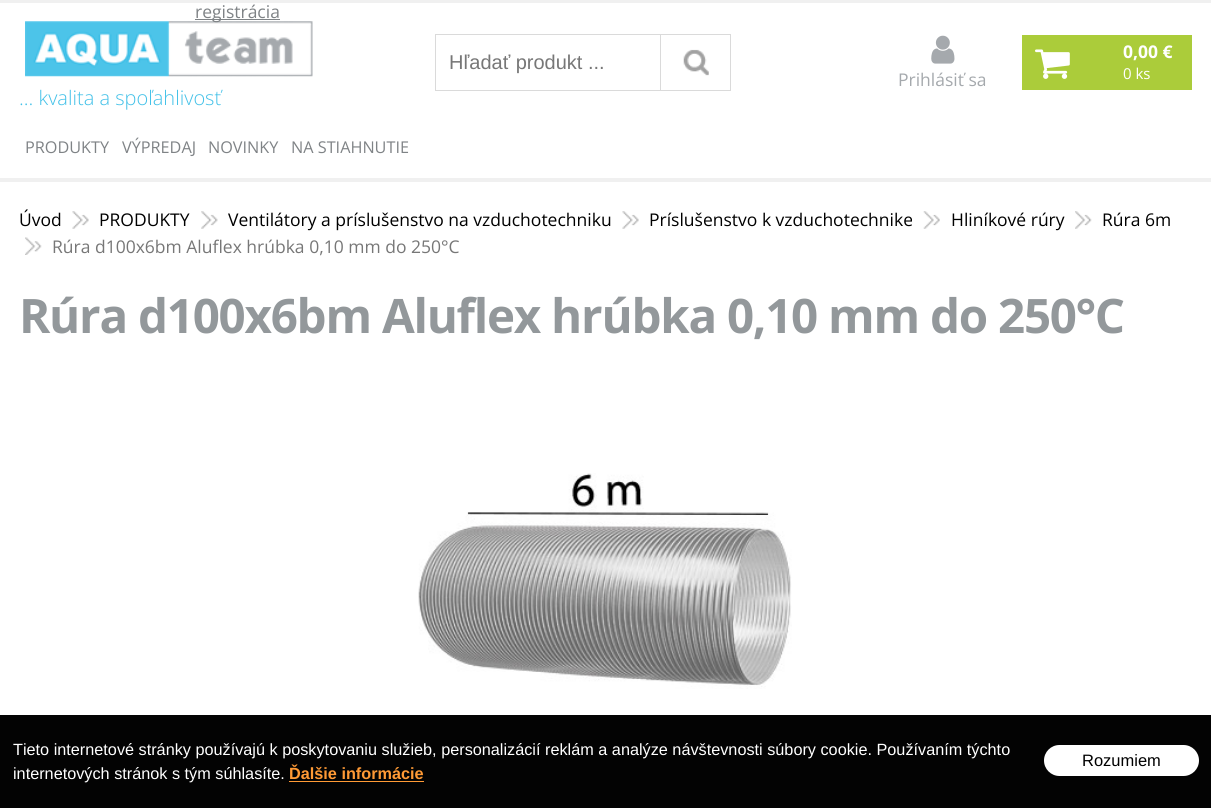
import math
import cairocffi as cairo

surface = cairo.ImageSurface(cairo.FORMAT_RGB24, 1211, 808)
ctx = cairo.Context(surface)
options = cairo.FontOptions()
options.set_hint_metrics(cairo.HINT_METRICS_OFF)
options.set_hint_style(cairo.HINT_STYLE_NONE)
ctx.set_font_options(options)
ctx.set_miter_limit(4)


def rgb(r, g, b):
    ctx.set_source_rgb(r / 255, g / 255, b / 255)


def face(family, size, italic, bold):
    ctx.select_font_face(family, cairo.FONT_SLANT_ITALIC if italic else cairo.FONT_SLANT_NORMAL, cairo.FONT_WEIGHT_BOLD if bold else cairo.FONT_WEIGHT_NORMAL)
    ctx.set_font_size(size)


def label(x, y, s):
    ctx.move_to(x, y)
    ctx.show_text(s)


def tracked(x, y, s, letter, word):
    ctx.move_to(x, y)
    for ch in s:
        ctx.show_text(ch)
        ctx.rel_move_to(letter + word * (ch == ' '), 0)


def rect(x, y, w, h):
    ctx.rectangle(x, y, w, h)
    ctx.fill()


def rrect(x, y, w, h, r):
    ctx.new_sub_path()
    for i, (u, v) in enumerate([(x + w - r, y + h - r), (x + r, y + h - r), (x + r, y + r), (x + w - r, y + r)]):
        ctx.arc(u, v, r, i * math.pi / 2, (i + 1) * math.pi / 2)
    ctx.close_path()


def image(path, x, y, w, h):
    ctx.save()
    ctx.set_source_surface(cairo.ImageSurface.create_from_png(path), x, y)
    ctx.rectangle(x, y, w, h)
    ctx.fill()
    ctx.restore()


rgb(255, 255, 255)
ctx.paint()
rgb(3, 3, 3)
rect(0, 715, 1211, 93)
rgb(240, 240, 240)
rect(0, 0, 1211, 3)
rect(0, 178, 1211, 4)
rgb(127, 131, 134)
rect(195, 19, 85, 1)
image('image0.png', 25, 21, 288, 56)
face('Open Sans', 17.5, 0, 0)
label(195, 18, 'registrácia')
face('Open Sans Light', 20, 0, 0)
rgb(67, 193, 232)
label(19, 105, '... kvalita a spoľahlivosť')
ctx.rectangle(435.5, 34.5, 295, 56)
rgb(218, 218, 218)
ctx.set_line_width(1)
ctx.stroke()
face('Liberation Sans', 20, 0, 0)
rgb(119, 119, 119)
label(449, 69, 'Hľadať produkt ...')
rgb(218, 218, 218)
rect(660, 35, 1, 55)
image('image1.png', 683, 49, 26, 27)
image('image2.png', 931, 35, 24, 29)
face('Open Sans', 17.5, 0, 0)
rgb(165, 169, 173)
label(898, 86, 'Prihlásiť sa')
rgb(171, 204, 58)
rect(1022, 35, 170, 55)
image('image3.png', 1035, 49, 35, 30)
face('Open Sans', 17.5, 0, 1)
rgb(255, 255, 255)
label(1123, 58, '0,00 €')
face('Open Sans', 15, 0, 0)
label(1123, 79, '0 ks')
face('Open Sans', 16.25, 0, 0)
rgb(127, 131, 134)
label(25, 153, 'PRODUKTY')
label(122, 153, 'VÝPREDAJ')
label(208, 153, 'NOVINKY')
label(291, 153, 'NA STIAHNUTIE')
face('Open Sans', 17.5, 0, 0)
rgb(0, 0, 0)
label(19, 226, 'Úvod')
image('image4.png', 72, 211, 17, 18)
label(99, 226, 'PRODUKTY')
image('image5.png', 201, 211, 17, 18)
label(228, 226, 'Ventilátory a príslušenstvo na vzduchotechniku')
image('image6.png', 622, 211, 17, 18)
label(649, 226, 'Príslušenstvo k vzduchotechnike')
image('image7.png', 923, 211, 17, 18)
label(951, 226, 'Hliníkové rúry')
image('image8.png', 1075, 211, 17, 18)
label(1102, 226, 'Rúra 6m')
image('image9.png', 25, 237, 17, 18)
rgb(119, 119, 119)
label(52, 253, 'Rúra d100x6bm Aluflex hrúbka 0,10 mm do 250°C')
face('Open Sans', 47.5, 0, 1)
rgb(147, 152, 155)
tracked(19, 333, 'Rúra d100x6bm Aluflex hrúbka 0,10 mm do 250°C', -1.25, 0)
image('image10.png', 418, 473, 374, 216)
face('Liberation Sans', 16.25, 0, 0)
rgb(255, 255, 255)
label(13, 755, 'Tieto internetové stránky používajú k poskytovaniu služieb, personalizácií reklám a analýze návštevnosti súbory cookie. Používaním týchto')
rrect(1044, 745, 155, 31, 15.5)
ctx.fill()
face('Liberation Sans', 16.5, 0, 0)
rgb(0, 0, 0)
label(1082, 766, 'Rozumiem')
face('Liberation Sans', 16.25, 0, 0)
rgb(255, 255, 255)
label(13, 779, 'internetových stránok s tým súhlasíte.')
face('Liberation Sans', 16.25, 0, 1)
rgb(255, 154, 53)
label(289, 779, 'Ďalšie informácie')
rect(289, 781, 135, 1)
surface.write_to_png('render.png')
